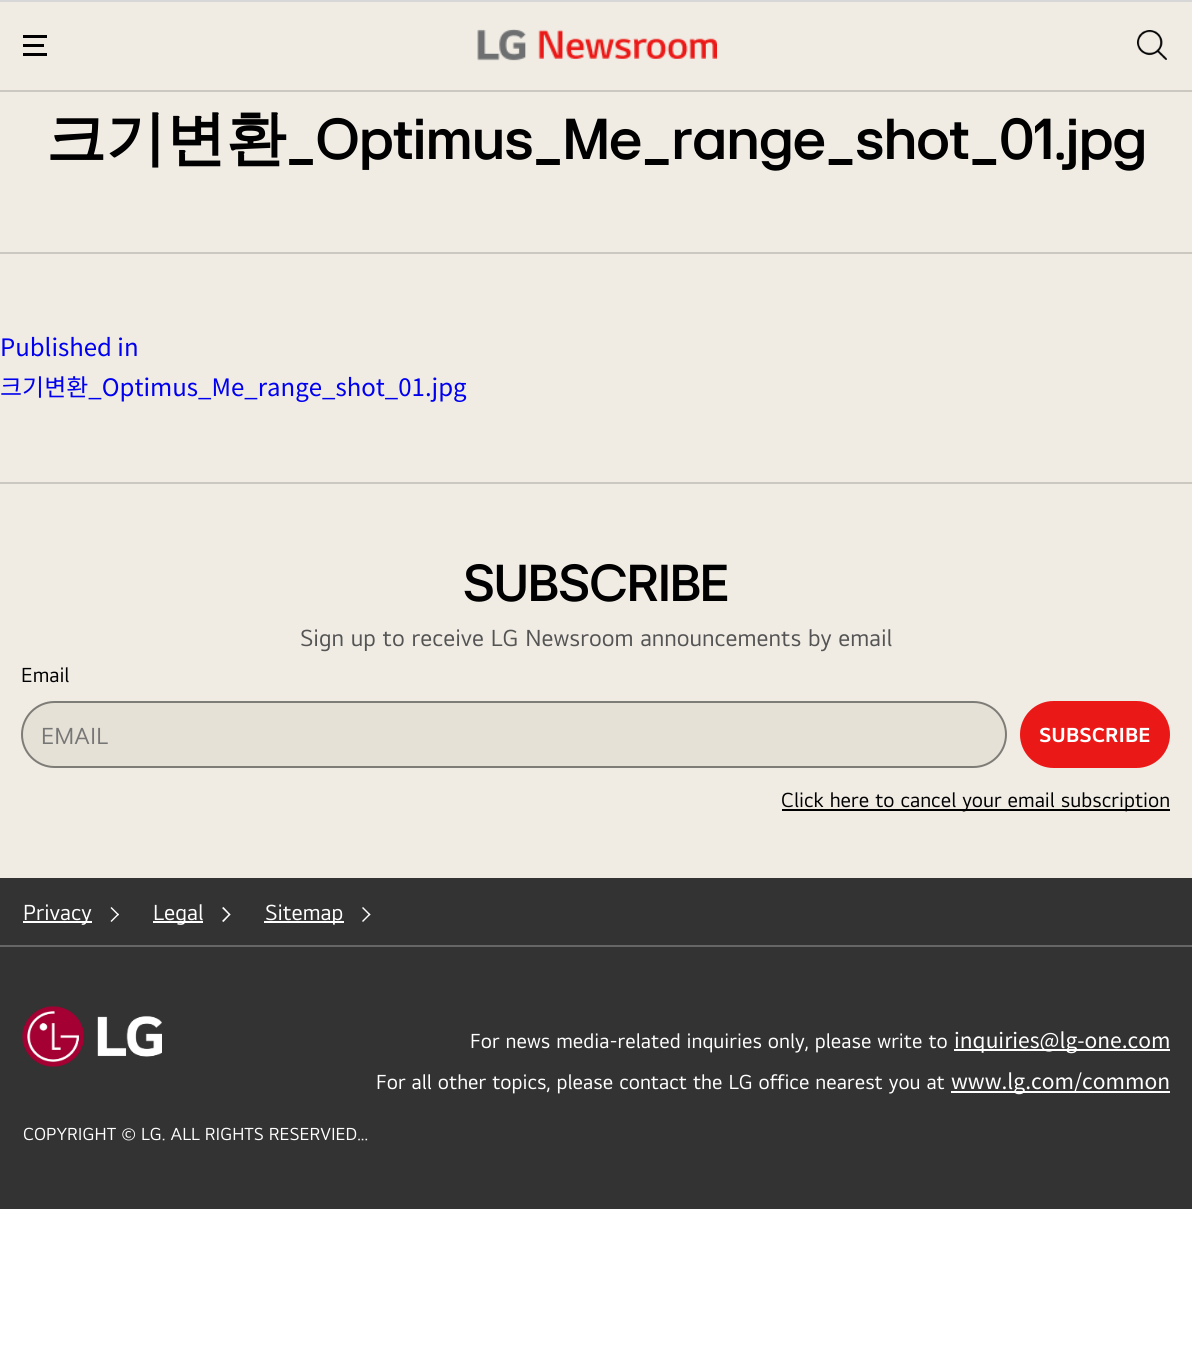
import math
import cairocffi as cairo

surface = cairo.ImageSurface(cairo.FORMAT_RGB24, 1192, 1371)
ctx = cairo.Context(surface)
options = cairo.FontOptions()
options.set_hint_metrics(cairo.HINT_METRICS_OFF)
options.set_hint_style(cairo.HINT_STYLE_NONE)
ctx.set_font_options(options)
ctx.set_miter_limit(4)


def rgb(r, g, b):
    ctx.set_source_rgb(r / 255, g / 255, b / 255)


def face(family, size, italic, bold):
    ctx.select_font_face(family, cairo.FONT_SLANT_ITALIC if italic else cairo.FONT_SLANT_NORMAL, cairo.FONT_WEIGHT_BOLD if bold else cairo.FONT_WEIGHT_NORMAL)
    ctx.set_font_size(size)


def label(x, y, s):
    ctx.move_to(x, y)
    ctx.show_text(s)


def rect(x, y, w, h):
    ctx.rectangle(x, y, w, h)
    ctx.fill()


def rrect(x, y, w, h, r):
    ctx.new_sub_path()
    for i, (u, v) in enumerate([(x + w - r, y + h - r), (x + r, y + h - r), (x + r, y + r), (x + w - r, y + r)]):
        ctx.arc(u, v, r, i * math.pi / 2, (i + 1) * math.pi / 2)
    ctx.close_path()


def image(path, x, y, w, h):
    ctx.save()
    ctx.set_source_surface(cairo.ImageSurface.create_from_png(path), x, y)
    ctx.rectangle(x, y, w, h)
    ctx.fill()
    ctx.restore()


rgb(255, 255, 255)
ctx.paint()
rgb(240, 236, 228)
rect(0, 2, 1192, 876)
rgb(215, 215, 215)
rect(0, 0, 1192, 2)
rgb(203, 200, 194)
rect(0, 90, 1192, 2)
rgb(0, 0, 0)
rect(23, 35, 24, 3)
rect(23, 44, 21, 3)
rect(23, 53, 24, 3)
image('image0.png', 477, 29, 240, 32)
image('image1.png', 1137, 30, 30, 30)
rgb(203, 200, 194)
rect(0, 252, 1192, 2)
face('WenQuanYi Zen Hei', 60, 0, 1)
rgb(0, 0, 0)
label(46, 159, '크기변환')
face('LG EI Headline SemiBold', 60, 0, 0)
label(286, 159, '_Optimus_Me_range_shot_01.jpg')
face('Noto Sans CJK KR', 24, 0, 0)
rgb(0, 0, 238)
label(0, 356, 'Published in')
label(0, 396, '크기변환_Optimus_Me_range_shot_01.jpg')
rgb(203, 200, 194)
rect(0, 482, 1192, 2)
face('LG EI Headline SemiBold', 54, 0, 0)
rgb(0, 0, 0)
label(463, 601, 'SUBSCRIBE')
face('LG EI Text', 24, 0, 0)
rgb(84, 84, 84)
label(300, 646, 'Sign up to receive LG Newsroom announcements by email')
face('LG EI Text', 21, 0, 0)
rgb(0, 0, 0)
label(21, 682, 'Email')
rgb(230, 225, 214)
rrect(22, 702, 984, 65, 32.5)
ctx.fill_preserve()
rgb(126, 124, 119)
ctx.stroke()
face('LG EI Text', 24, 0, 0)
rgb(118, 118, 118)
label(41, 744, 'EMAIL')
rgb(234, 25, 23)
rrect(1021, 702, 148, 65, 32.5)
ctx.fill_preserve()
ctx.stroke()
face('LG EI Text', 21, 0, 1)
rgb(255, 255, 255)
label(1039, 742, 'SUBSCRIBE')
rgb(0, 0, 0)
rect(782, 809, 388, 2)
face('LG EI Text', 21, 0, 0)
label(781, 807, 'Click here to cancel your email subscription')
rgb(51, 51, 51)
rect(0, 878, 1192, 331)
rgb(102, 102, 102)
rect(0, 945, 1192, 2)
rgb(255, 255, 255)
rect(23, 921, 69, 2)
face('LG EI Text', 22.5, 0, 0)
label(23, 920, 'Privacy')
ctx.new_path()
ctx.move_to(111.5, 907)
ctx.line_to(119, 914.5)
ctx.line_to(118, 915.5)
ctx.line_to(110.5, 908)
ctx.close_path()
ctx.fill()
ctx.new_path()
ctx.move_to(118, 913.5)
ctx.line_to(119, 914.5)
ctx.line_to(111.5, 922)
ctx.line_to(110.5, 921)
ctx.close_path()
ctx.fill()
rect(153, 921, 50, 2)
label(153, 920, 'Legal')
ctx.new_path()
ctx.move_to(223.5, 907)
ctx.line_to(230.5, 914.5)
ctx.line_to(229.5, 915.5)
ctx.line_to(222, 908)
ctx.close_path()
ctx.fill()
ctx.new_path()
ctx.move_to(229.5, 913.5)
ctx.line_to(230.5, 914.5)
ctx.line_to(223.5, 922)
ctx.line_to(222, 921)
ctx.close_path()
ctx.fill()
rect(264, 921, 80, 2)
label(265, 920, 'Sitemap')
ctx.new_path()
ctx.move_to(363, 907)
ctx.line_to(370.5, 914.5)
ctx.line_to(369.5, 915.5)
ctx.line_to(362, 908)
ctx.close_path()
ctx.fill()
ctx.new_path()
ctx.move_to(369.5, 913.5)
ctx.line_to(370.5, 914.5)
ctx.line_to(363, 922)
ctx.line_to(362, 921)
ctx.close_path()
ctx.fill()
image('image2.png', 22, 1006, 140, 61)
face('LG EI Text', 21, 0, 0)
label(470, 1048, 'For news media-related inquiries only, please write to')
rect(954, 1049, 216, 2)
face('Noto Sans CJK KR', 21, 0, 0)
label(954, 1048, 'inquiries@lg-one.com')
face('LG EI Text', 21, 0, 0)
label(376, 1089, 'For all other topics, please contact the LG office nearest you at')
rect(951, 1091, 219, 2)
face('Noto Sans CJK KR', 21, 0, 0)
label(951, 1089, 'www.lg.com/common')
face('LG EI Text', 18, 0, 0)
label(23, 1140, 'COPYRIGHT © LG. ALL RIGHTS RESERVIED...')
surface.write_to_png('render.png')
